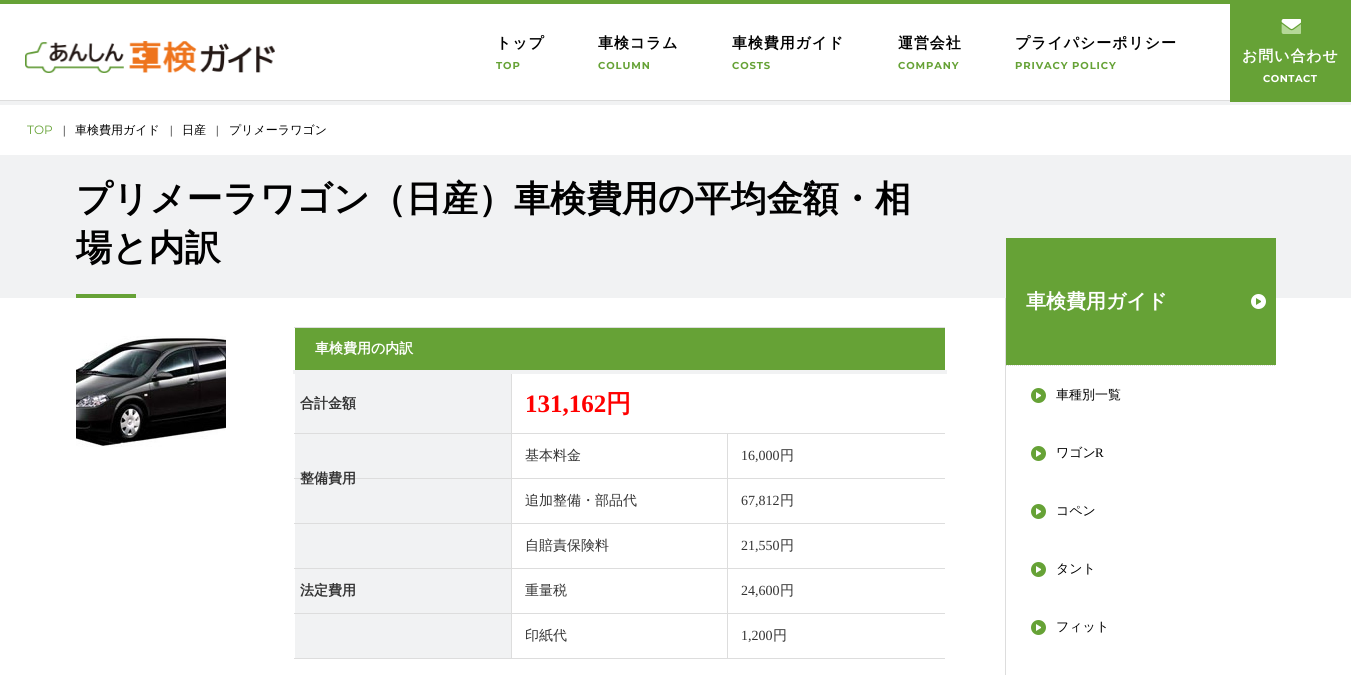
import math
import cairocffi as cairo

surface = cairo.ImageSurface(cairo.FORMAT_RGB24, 1351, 675)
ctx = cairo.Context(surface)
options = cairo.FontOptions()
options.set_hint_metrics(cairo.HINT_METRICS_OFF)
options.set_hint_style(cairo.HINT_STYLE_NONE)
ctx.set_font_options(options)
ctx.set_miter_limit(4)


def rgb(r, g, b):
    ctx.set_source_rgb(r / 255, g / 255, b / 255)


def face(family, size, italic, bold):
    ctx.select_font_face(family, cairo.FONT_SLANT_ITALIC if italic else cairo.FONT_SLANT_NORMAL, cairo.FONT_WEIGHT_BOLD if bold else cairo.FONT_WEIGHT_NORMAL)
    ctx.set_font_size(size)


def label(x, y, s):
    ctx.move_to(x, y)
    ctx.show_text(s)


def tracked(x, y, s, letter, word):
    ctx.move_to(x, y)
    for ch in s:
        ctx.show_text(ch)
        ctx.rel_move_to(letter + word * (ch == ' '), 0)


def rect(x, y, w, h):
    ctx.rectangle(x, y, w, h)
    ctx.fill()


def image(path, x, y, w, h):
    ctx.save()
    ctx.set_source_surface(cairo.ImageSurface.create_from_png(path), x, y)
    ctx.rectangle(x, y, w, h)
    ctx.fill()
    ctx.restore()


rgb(255, 255, 255)
ctx.paint()
rgb(102, 162, 54)
rect(0, 0, 1351, 4)
ctx.rectangle(-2.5, -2.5, 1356, 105)
rgb(241, 242, 243)
ctx.set_line_width(5)
ctx.stroke()
image('image0.png', 25, 41, 250, 32)
face('WenQuanYi Zen Hei', 15, 0, 1)
rgb(0, 0, 0)
tracked(496, 48, 'トップ', 0.9, 0)
face('Montserrat', 10, 0, 1)
rgb(102, 162, 54)
tracked(496, 69, 'TOP', 0.9, 0)
face('WenQuanYi Zen Hei', 15, 0, 1)
rgb(0, 0, 0)
tracked(598, 48, '車検コラム', 0.9, 0)
face('Montserrat', 10, 0, 1)
rgb(102, 162, 54)
tracked(598, 69, 'COLUMN', 0.9, 0)
face('WenQuanYi Zen Hei', 15, 0, 1)
rgb(0, 0, 0)
tracked(732, 48, '車検費用ガイド', 0.9, 0)
face('Montserrat', 10, 0, 1)
rgb(102, 162, 54)
tracked(732, 69, 'COSTS', 0.9, 0)
face('WenQuanYi Zen Hei', 15, 0, 1)
rgb(0, 0, 0)
tracked(898, 48, '運営会社', 0.9, 0)
face('Montserrat', 10, 0, 1)
rgb(102, 162, 54)
tracked(898, 69, 'COMPANY', 0.9, 0)
face('WenQuanYi Zen Hei', 15, 0, 1)
rgb(0, 0, 0)
tracked(1015, 48, 'プライパシーポリシー', 0.9, 0)
face('Montserrat', 10, 0, 1)
rgb(102, 162, 54)
tracked(1015, 69, 'PRIVACY POLICY', 0.9, 0)
rect(1230, 4, 121, 98)
image('image1.png', 1281, 19, 20, 15)
face('WenQuanYi Zen Hei', 15, 0, 1)
rgb(255, 255, 255)
tracked(1242, 61, 'お問い合わせ', 0.9, 0)
face('Montserrat', 10, 0, 1)
tracked(1263, 82, 'CONTACT', 0.5, 0)
rgb(221, 221, 221)
rect(0, 100, 1230, 1)
face('Montserrat', 12, 0, 0)
rgb(102, 162, 54)
label(27, 134, 'TOP')
face('Liberation Serif', 12, 0, 0)
rgb(0, 0, 0)
label(63, 134, '|')
face('WenQuanYi Zen Hei Medium', 12, 0, 0)
label(75, 134, '車検費用ガイド')
face('Liberation Serif', 12, 0, 0)
label(170, 134, '|')
face('WenQuanYi Zen Hei Medium', 12, 0, 0)
label(182, 134, '日産')
face('Liberation Serif', 12, 0, 0)
label(216, 134, '|')
face('WenQuanYi Zen Hei Medium', 12, 0, 0)
label(229, 134, 'プリメーラワゴン')
rgb(241, 242, 243)
rect(0, 155, 1351, 143)
face('WenQuanYi Zen Hei', 36, 0, 1)
rgb(0, 0, 0)
label(76, 211, 'プリメーラワゴン（日産）車検費用の平均金額・相')
label(76, 260, '場と内訳')
rgb(102, 162, 54)
rect(76, 294, 60, 4)
rgb(221, 221, 221)
rect(1005, 298, 1, 377)
image('image2.png', 76, 336, 150, 111)
rgb(102, 162, 54)
rect(295, 328, 650, 42)
rgb(221, 221, 221)
rect(294, 327, 651, 1)
face('WenQuanYi Zen Hei', 14, 0, 1)
rgb(255, 255, 255)
label(315, 353, '車検費用の内訳')
rgb(221, 221, 221)
rect(294, 658, 651, 1)
rect(294, 433, 651, 1)
rgb(241, 242, 243)
rect(295, 434, 216, 89)
rgb(221, 221, 221)
rect(294, 478, 651, 1)
rect(294, 523, 651, 1)
rgb(241, 242, 243)
rect(295, 524, 216, 134)
rgb(221, 221, 221)
rect(294, 568, 651, 1)
rect(294, 613, 651, 1)
rect(511, 372, 1, 287)
rgb(241, 242, 243)
rect(293, 370, 654, 4)
rect(295, 374, 216, 59)
rgb(51, 51, 51)
label(300, 408, '合計金額')
face('Liberation Serif', 25, 0, 1)
rgb(255, 0, 0)
label(525, 412, '131,162')
face('WenQuanYi Zen Hei', 25, 0, 1)
label(606, 412, '円')
face('WenQuanYi Zen Hei Medium', 14, 0, 0)
rgb(51, 51, 51)
label(525, 460, '基本料金')
face('Liberation Serif', 14, 0, 0)
label(741, 460, '16,000')
face('WenQuanYi Zen Hei Medium', 14, 0, 0)
label(780, 460, '円')
face('WenQuanYi Zen Hei', 14, 0, 1)
label(300, 483, '整備費用')
face('WenQuanYi Zen Hei Medium', 14, 0, 0)
label(525, 505, '追加整備・部品代')
face('Liberation Serif', 14, 0, 0)
label(741, 505, '67,812')
face('WenQuanYi Zen Hei Medium', 14, 0, 0)
label(780, 505, '円')
label(525, 550, '自賠責保険料')
face('Liberation Serif', 14, 0, 0)
label(741, 550, '21,550')
face('WenQuanYi Zen Hei Medium', 14, 0, 0)
label(780, 550, '円')
face('WenQuanYi Zen Hei', 14, 0, 1)
label(300, 595, '法定費用')
face('WenQuanYi Zen Hei Medium', 14, 0, 0)
label(525, 595, '重量税')
face('Liberation Serif', 14, 0, 0)
label(741, 595, '24,600')
face('WenQuanYi Zen Hei Medium', 14, 0, 0)
label(780, 595, '円')
label(525, 640, '印紙代')
rgb(221, 221, 221)
rect(727, 433, 1, 226)
face('Liberation Serif', 14, 0, 0)
rgb(51, 51, 51)
label(741, 640, '1,200')
face('WenQuanYi Zen Hei Medium', 14, 0, 0)
label(773, 640, '円')
rgb(102, 162, 54)
rect(1006, 238, 270, 127)
face('WenQuanYi Zen Hei', 20, 0, 1)
rgb(255, 255, 255)
label(1026, 308, '車検費用ガイド')
ctx.new_path()
ctx.arc(1258.5, 301.5, 7.5, 0, 2 * math.pi)
ctx.fill()
rgb(102, 162, 54)
ctx.new_path()
ctx.move_to(1256, 305)
ctx.line_to(1256, 298)
ctx.line_to(1261, 301)
ctx.line_to(1261, 302)
ctx.close_path()
ctx.fill()
ctx.new_path()
ctx.move_to(1006, 365.5)
ctx.line_to(1276, 365.5)
rgb(221, 221, 221)
ctx.set_line_width(1)
ctx.set_dash([1, 1])
ctx.stroke()
rgb(102, 162, 54)
ctx.arc(1038.5, 395.5, 7.5, 0, 2 * math.pi)
ctx.fill()
face('WenQuanYi Zen Hei Medium', 13, 0, 0)
rgb(0, 0, 0)
label(1056, 399, '車種別一覧')
rgb(255, 255, 255)
ctx.new_path()
ctx.move_to(1036, 399)
ctx.line_to(1036, 392)
ctx.line_to(1041, 395)
ctx.line_to(1041, 396)
ctx.close_path()
ctx.fill()
rgb(102, 162, 54)
ctx.arc(1038.5, 453.5, 7.5, 0, 2 * math.pi)
ctx.fill()
rgb(0, 0, 0)
label(1056, 457, 'ワゴン')
face('Liberation Serif', 13, 0, 0)
label(1095, 457, 'R')
rgb(255, 255, 255)
ctx.new_path()
ctx.move_to(1036, 457)
ctx.line_to(1036, 450)
ctx.line_to(1041, 453)
ctx.line_to(1041, 454)
ctx.close_path()
ctx.fill()
rgb(102, 162, 54)
ctx.arc(1038.5, 511.5, 7.5, 0, 2 * math.pi)
ctx.fill()
face('WenQuanYi Zen Hei Medium', 13, 0, 0)
rgb(0, 0, 0)
label(1056, 515, 'コペン')
rgb(255, 255, 255)
ctx.new_path()
ctx.move_to(1036, 515)
ctx.line_to(1036, 508)
ctx.line_to(1041, 511)
ctx.line_to(1041, 512)
ctx.close_path()
ctx.fill()
rgb(102, 162, 54)
ctx.arc(1038.5, 569.5, 7.5, 0, 2 * math.pi)
ctx.fill()
rgb(0, 0, 0)
label(1056, 573, 'タント')
rgb(255, 255, 255)
ctx.new_path()
ctx.move_to(1036, 573)
ctx.line_to(1036, 566)
ctx.line_to(1041, 569)
ctx.line_to(1041, 570)
ctx.close_path()
ctx.fill()
rgb(102, 162, 54)
ctx.arc(1038.5, 627.5, 7.5, 0, 2 * math.pi)
ctx.fill()
rgb(0, 0, 0)
label(1056, 631, 'フィット')
rgb(255, 255, 255)
ctx.new_path()
ctx.move_to(1036, 631)
ctx.line_to(1036, 624)
ctx.line_to(1041, 627)
ctx.line_to(1041, 628)
ctx.close_path()
ctx.fill()
surface.write_to_png('render.png')
